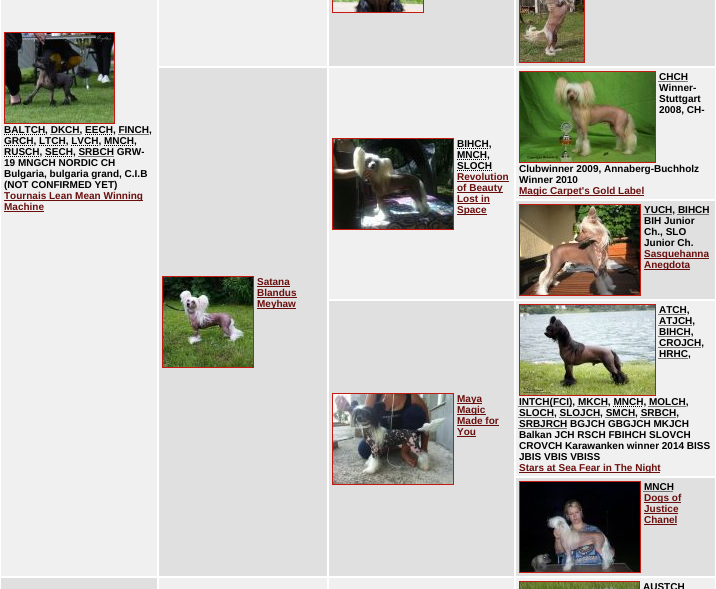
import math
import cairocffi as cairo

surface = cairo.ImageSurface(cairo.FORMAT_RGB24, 716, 589)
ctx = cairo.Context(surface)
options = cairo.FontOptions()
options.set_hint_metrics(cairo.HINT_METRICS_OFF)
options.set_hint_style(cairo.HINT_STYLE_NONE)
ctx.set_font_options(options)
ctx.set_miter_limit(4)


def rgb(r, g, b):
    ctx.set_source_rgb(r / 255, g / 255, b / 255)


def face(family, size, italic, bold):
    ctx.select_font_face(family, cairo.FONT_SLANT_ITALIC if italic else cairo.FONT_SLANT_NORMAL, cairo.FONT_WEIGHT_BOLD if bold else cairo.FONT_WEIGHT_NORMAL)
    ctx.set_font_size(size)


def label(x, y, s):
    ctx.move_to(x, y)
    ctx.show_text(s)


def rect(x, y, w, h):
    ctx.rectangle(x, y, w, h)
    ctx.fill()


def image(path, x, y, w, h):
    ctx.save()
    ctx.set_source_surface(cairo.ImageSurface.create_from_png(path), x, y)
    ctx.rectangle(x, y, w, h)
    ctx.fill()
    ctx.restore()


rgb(240, 240, 240)
ctx.paint()
rgb(224, 224, 224)
ctx.rectangle(328.5, -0.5, 186, 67)
ctx.fill_preserve()
rgb(255, 255, 255)
ctx.set_line_width(1)
ctx.stroke()
ctx.rectangle(332.5, -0.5, 91, 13)
rgb(197, 26, 18)
ctx.stroke()
image('image0.png', 333, 0, 90, 12)
rgb(224, 224, 224)
ctx.rectangle(515.5, -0.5, 200, 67)
ctx.fill_preserve()
rgb(255, 255, 255)
ctx.stroke()
ctx.rectangle(519.5, -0.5, 65, 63)
rgb(197, 26, 18)
ctx.stroke()
image('image1.png', 520, 0, 64, 62)
ctx.rectangle(158.5, -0.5, 169, 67)
rgb(255, 255, 255)
ctx.stroke()
ctx.rectangle(0.5, -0.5, 157, 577)
ctx.stroke()
ctx.rectangle(4.5, 32.5, 110, 91)
rgb(197, 26, 18)
ctx.stroke()
image('image2.png', 5, 33, 109, 90)
ctx.new_path()
ctx.move_to(4, 134.5)
ctx.line_to(45, 134.5)
rgb(0, 0, 0)
ctx.set_dash([1, 1])
ctx.stroke()
face('Liberation Sans', 10, 0, 1)
label(4, 133, 'BALTCH, DKCH, EECH, FINCH,')
ctx.new_path()
ctx.move_to(50.5, 134.5)
ctx.line_to(79.5, 134.5)
ctx.move_to(85, 134.5)
ctx.line_to(113, 134.5)
ctx.stroke()
ctx.new_path()
ctx.move_to(118.5, 134.5)
ctx.line_to(149, 134.5)
ctx.stroke()
ctx.new_path()
ctx.move_to(4, 145.5)
ctx.line_to(33.5, 145.5)
ctx.stroke()
label(4, 144, 'GRCH, LTCH, LVCH, MNCH,')
ctx.new_path()
ctx.move_to(39, 145.5)
ctx.line_to(65.5, 145.5)
ctx.move_to(71, 145.5)
ctx.line_to(98.5, 145.5)
ctx.stroke()
ctx.new_path()
ctx.move_to(104, 145.5)
ctx.line_to(134, 145.5)
ctx.stroke()
ctx.new_path()
ctx.move_to(4, 156.5)
ctx.line_to(39.5, 156.5)
ctx.stroke()
label(4, 155, 'RUSCH, SECH, SRBCH GRW-')
ctx.new_path()
ctx.move_to(45, 156.5)
ctx.line_to(73, 156.5)
ctx.stroke()
ctx.new_path()
ctx.move_to(78.5, 156.5)
ctx.line_to(114, 156.5)
ctx.stroke()
label(4, 166, '19 MNGCH NORDIC CH')
label(4, 177, 'Bulgaria, bulgaria grand, C.I.B')
label(4, 188, '(NOT CONFIRMED YET)')
rgb(105, 15, 13)
rect(4, 200, 139, 1)
label(4, 199, 'Tournais Lean Mean Winning')
label(4, 210, 'Machine')
rect(4, 211, 40, 1)
ctx.rectangle(328.5, 67.5, 186, 232)
rgb(255, 255, 255)
ctx.set_dash([])
ctx.stroke()
ctx.rectangle(332.5, 138.5, 121, 91)
rgb(197, 26, 18)
ctx.stroke()
image('image3.png', 333, 139, 120, 90)
ctx.new_path()
ctx.move_to(457, 148.5)
ctx.line_to(489, 148.5)
rgb(0, 0, 0)
ctx.set_dash([1, 1])
ctx.stroke()
label(457, 147, 'BIHCH,')
ctx.new_path()
ctx.move_to(457, 159.5)
ctx.line_to(487, 159.5)
ctx.stroke()
label(457, 158, 'MNCH,')
label(457, 169, 'SLOCH')
ctx.new_path()
ctx.move_to(457, 170.5)
ctx.line_to(492, 170.5)
ctx.stroke()
rgb(105, 15, 13)
label(457, 180, 'Revolution')
rect(457, 181, 52, 1)
rect(457, 192, 46, 1)
label(457, 191, 'of Beauty')
label(457, 202, 'Lost in')
rect(457, 203, 33, 1)
rect(457, 214, 30, 1)
label(457, 213, 'Space')
ctx.rectangle(515.5, 67.5, 200, 132)
rgb(255, 255, 255)
ctx.set_dash([])
ctx.stroke()
ctx.rectangle(519.5, 71.5, 136, 91)
rgb(197, 26, 18)
ctx.stroke()
image('image4.png', 520, 72, 135, 90)
rgb(0, 0, 0)
label(659, 80, 'CHCH')
ctx.new_path()
ctx.move_to(658.5, 81.5)
ctx.line_to(687.5, 81.5)
ctx.set_dash([1, 1])
ctx.stroke()
label(659, 91, 'Winner-')
label(659, 102, 'Stuttgart')
label(659, 113, '2008, CH-')
label(519, 172, 'Clubwinner 2009, Annaberg-Buchholz')
label(519, 183, 'Winner 2010')
rgb(105, 15, 13)
rect(519, 195, 125, 1)
label(519, 194, 'Magic Carpet\'s Gold Label')
rgb(224, 224, 224)
ctx.rectangle(158.5, 67.5, 169, 509)
ctx.fill_preserve()
rgb(255, 255, 255)
ctx.set_dash([])
ctx.stroke()
ctx.rectangle(162.5, 276.5, 91, 91)
rgb(197, 26, 18)
ctx.stroke()
image('image5.png', 163, 277, 90, 90)
rgb(105, 15, 13)
label(257, 285, 'Satana')
rect(257, 286, 33, 1)
label(257, 296, 'Blandus')
rect(257, 297, 40, 1)
rect(257, 308, 39, 1)
label(257, 307, 'Meyhaw')
rgb(224, 224, 224)
ctx.rectangle(515.5, 200.5, 200, 99)
ctx.fill_preserve()
rgb(255, 255, 255)
ctx.stroke()
ctx.rectangle(519.5, 204.5, 121, 91)
rgb(197, 26, 18)
ctx.stroke()
image('image6.png', 520, 205, 120, 90)
ctx.new_path()
ctx.move_to(643.5, 214.5)
ctx.line_to(672, 214.5)
rgb(0, 0, 0)
ctx.set_dash([1, 1])
ctx.stroke()
label(644, 213, 'YUCH, BIHCH')
ctx.new_path()
ctx.move_to(677.5, 214.5)
ctx.line_to(709.5, 214.5)
ctx.stroke()
label(644, 224, 'BIH Junior')
label(644, 235, 'Ch., SLO')
label(644, 246, 'Junior Ch.')
rgb(105, 15, 13)
rect(644, 258, 65, 1)
label(644, 257, 'Sasquehanna')
rect(644, 269, 46, 1)
label(644, 268, 'Anegdota')
rgb(224, 224, 224)
ctx.rectangle(328.5, 300.5, 186, 276)
ctx.fill_preserve()
rgb(255, 255, 255)
ctx.set_dash([])
ctx.stroke()
ctx.rectangle(332.5, 393.5, 121, 91)
rgb(197, 26, 18)
ctx.stroke()
image('image7.png', 333, 394, 120, 90)
rgb(105, 15, 13)
rect(457, 403, 25, 1)
label(457, 402, 'Maya')
rect(457, 414, 29, 1)
label(457, 413, 'Magic')
label(457, 424, 'Made for')
rect(457, 425, 42, 1)
label(457, 435, 'You')
rect(457, 436, 19, 1)
ctx.rectangle(515.5, 300.5, 200, 176)
rgb(255, 255, 255)
ctx.stroke()
ctx.rectangle(519.5, 304.5, 136, 91)
rgb(197, 26, 18)
ctx.stroke()
image('image8.png', 520, 305, 135, 90)
ctx.new_path()
ctx.move_to(658.5, 314.5)
ctx.line_to(686.5, 314.5)
rgb(0, 0, 0)
ctx.set_dash([1, 1])
ctx.stroke()
label(659, 313, 'ATCH,')
ctx.new_path()
ctx.move_to(658.5, 325.5)
ctx.line_to(692, 325.5)
ctx.stroke()
label(659, 324, 'ATJCH,')
ctx.new_path()
ctx.move_to(658.5, 336.5)
ctx.line_to(690.5, 336.5)
ctx.stroke()
label(659, 335, 'BIHCH,')
ctx.new_path()
ctx.move_to(658.5, 347.5)
ctx.line_to(701, 347.5)
ctx.stroke()
label(659, 346, 'CROJCH,')
ctx.new_path()
ctx.move_to(658.5, 358.5)
ctx.line_to(687.5, 358.5)
ctx.stroke()
label(659, 357, 'HRHC,')
ctx.new_path()
ctx.move_to(518.5, 406.5)
ctx.line_to(572, 406.5)
ctx.stroke()
label(519, 405, 'INTCH(FCI), MKCH, MNCH, MOLCH,')
ctx.new_path()
ctx.move_to(577.5, 406.5)
ctx.line_to(607.5, 406.5)
ctx.stroke()
ctx.new_path()
ctx.move_to(613, 406.5)
ctx.line_to(643, 406.5)
ctx.stroke()
ctx.new_path()
ctx.move_to(648.5, 406.5)
ctx.line_to(685.5, 406.5)
ctx.stroke()
ctx.new_path()
ctx.move_to(518.5, 417.5)
ctx.line_to(553.5, 417.5)
ctx.stroke()
label(519, 416, 'SLOCH, SLOJCH, SMCH, SRBCH,')
ctx.new_path()
ctx.move_to(559.5, 417.5)
ctx.line_to(600, 417.5)
ctx.stroke()
ctx.new_path()
ctx.move_to(605.5, 417.5)
ctx.line_to(635, 417.5)
ctx.stroke()
ctx.new_path()
ctx.move_to(640.5, 417.5)
ctx.line_to(676, 417.5)
ctx.stroke()
label(519, 427, 'SRBJRCH BGJCH GBGJCH MKJCH')
ctx.new_path()
ctx.move_to(518.5, 428.5)
ctx.line_to(567, 428.5)
ctx.stroke()
label(519, 438, 'Balkan JCH RSCH FBIHCH SLOVCH')
label(519, 449, 'CROVCH Karawanken winner 2014 BISS')
label(519, 460, 'JBIS VBIS VBISS')
rgb(105, 15, 13)
rect(519, 472, 141, 1)
label(519, 471, 'Stars at Sea Fear in The Night')
rgb(224, 224, 224)
ctx.rectangle(515.5, 477.5, 200, 99)
ctx.fill_preserve()
rgb(255, 255, 255)
ctx.set_dash([])
ctx.stroke()
ctx.rectangle(519.5, 481.5, 121, 91)
rgb(197, 26, 18)
ctx.stroke()
image('image9.png', 520, 482, 120, 90)
rgb(0, 0, 0)
label(644, 490, 'MNCH')
ctx.new_path()
ctx.move_to(643.5, 491.5)
ctx.line_to(673.5, 491.5)
ctx.set_dash([1, 1])
ctx.stroke()
rgb(105, 15, 13)
rect(644, 502, 37, 1)
label(644, 501, 'Dogs of')
label(644, 512, 'Justice')
rect(644, 513, 34, 1)
label(644, 523, 'Chanel')
rect(644, 524, 33, 1)
rgb(224, 224, 224)
ctx.rectangle(0.5, 577.5, 157, 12)
ctx.fill_preserve()
rgb(255, 255, 255)
ctx.set_dash([])
ctx.stroke()
ctx.rectangle(158.5, 577.5, 169, 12)
ctx.stroke()
ctx.rectangle(328.5, 577.5, 186, 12)
ctx.stroke()
ctx.rectangle(515.5, 577.5, 200, 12)
ctx.stroke()
ctx.rectangle(519.5, 581.5, 120, 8)
rgb(197, 26, 18)
ctx.stroke()
image('image10.png', 520, 582, 119, 7)
rgb(0, 0, 0)
label(643, 590, 'AUSTCH')
surface.write_to_png('render.png')
